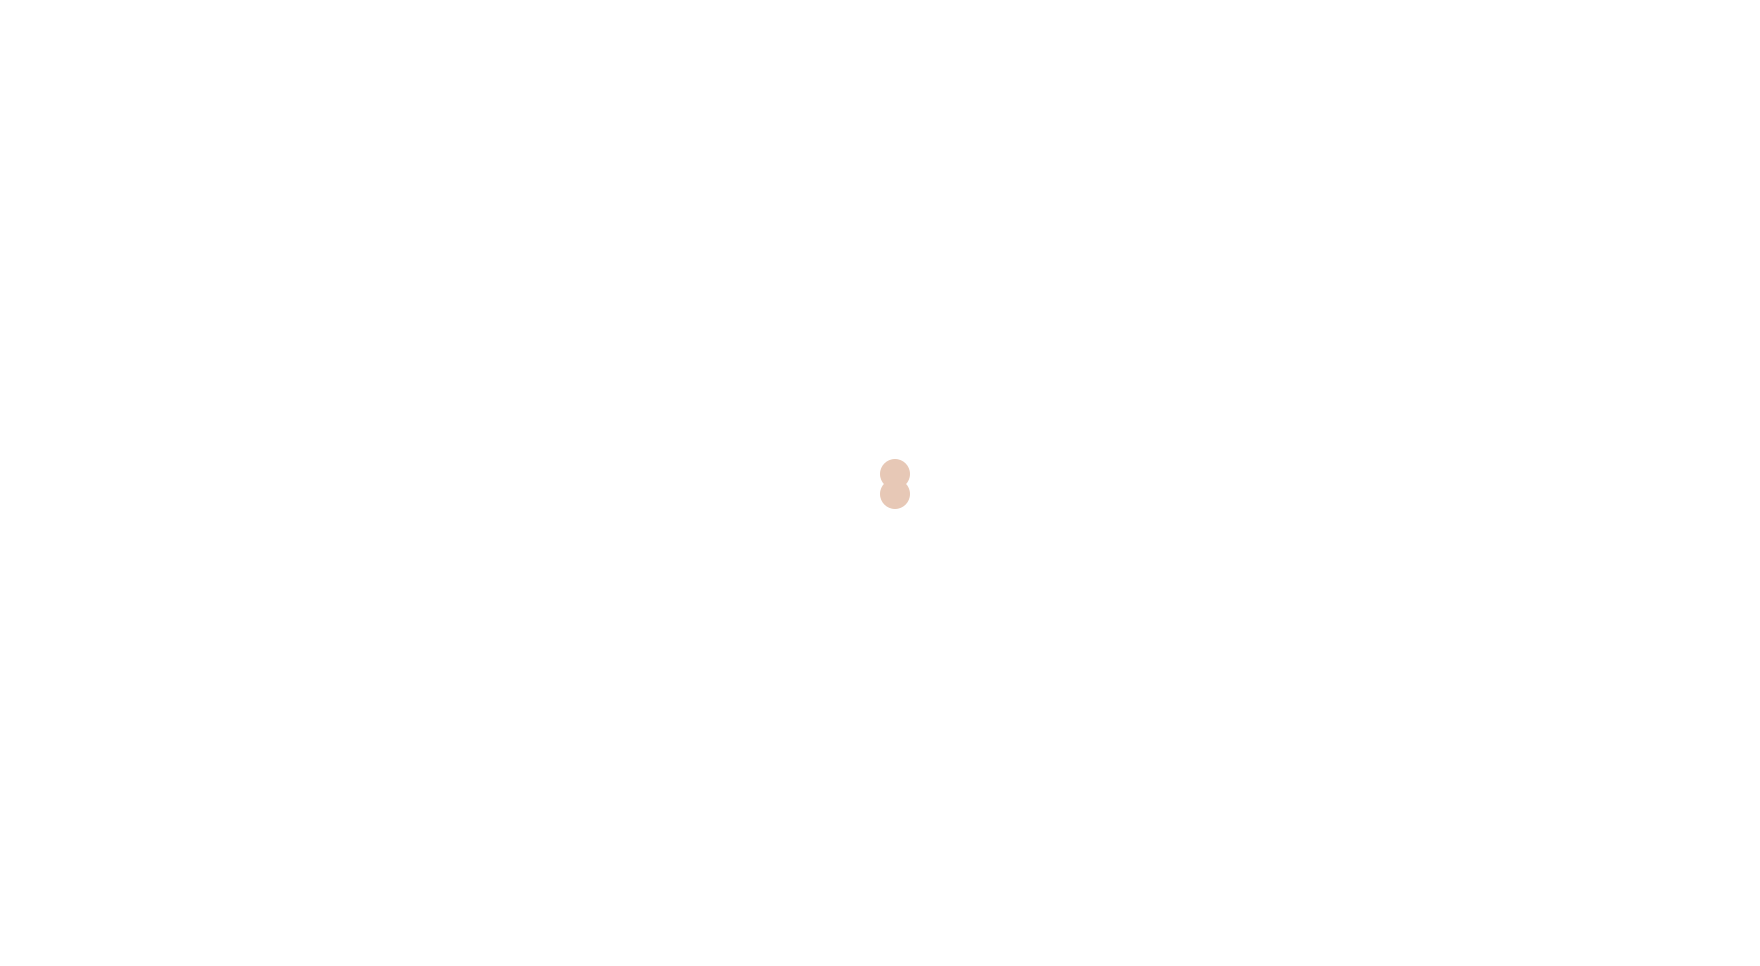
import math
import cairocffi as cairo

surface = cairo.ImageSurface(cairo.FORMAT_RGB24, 1760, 966)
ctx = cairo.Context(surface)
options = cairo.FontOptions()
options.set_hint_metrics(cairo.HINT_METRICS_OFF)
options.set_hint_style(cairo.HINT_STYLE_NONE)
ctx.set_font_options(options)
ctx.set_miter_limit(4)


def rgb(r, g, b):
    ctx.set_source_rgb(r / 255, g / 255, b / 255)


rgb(255, 255, 255)
ctx.paint()
rgb(231, 200, 182)
ctx.arc(895, 474, 15, 0, 2 * math.pi)
ctx.fill()
ctx.arc(895, 494, 15, 0, 2 * math.pi)
ctx.fill()
surface.write_to_png('render.png')
